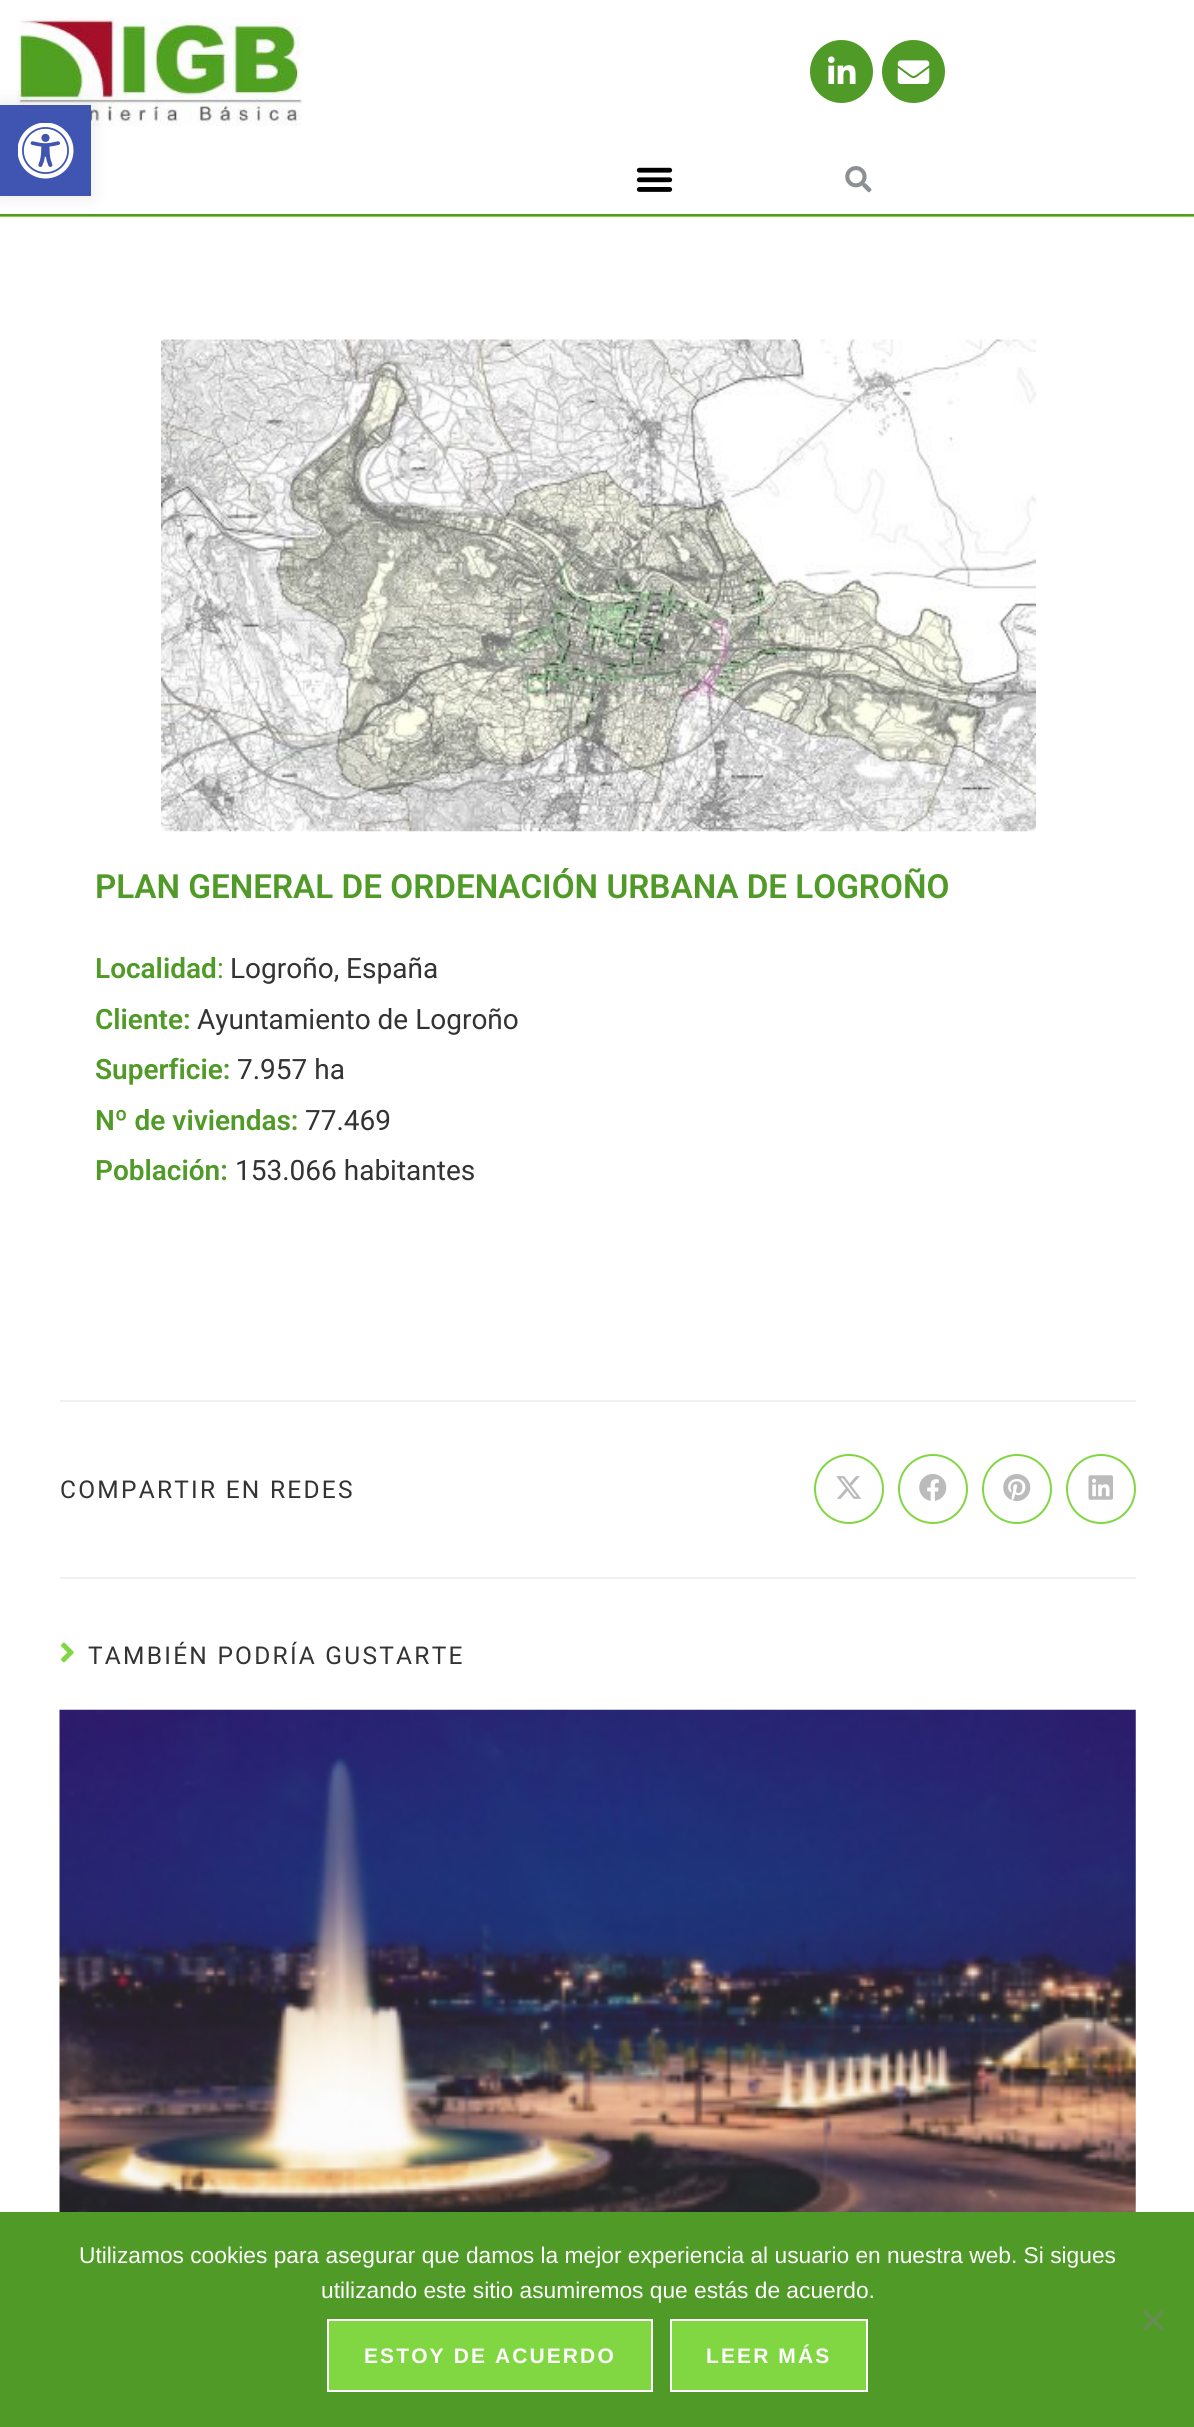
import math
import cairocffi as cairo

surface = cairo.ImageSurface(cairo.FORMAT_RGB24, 1194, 2427)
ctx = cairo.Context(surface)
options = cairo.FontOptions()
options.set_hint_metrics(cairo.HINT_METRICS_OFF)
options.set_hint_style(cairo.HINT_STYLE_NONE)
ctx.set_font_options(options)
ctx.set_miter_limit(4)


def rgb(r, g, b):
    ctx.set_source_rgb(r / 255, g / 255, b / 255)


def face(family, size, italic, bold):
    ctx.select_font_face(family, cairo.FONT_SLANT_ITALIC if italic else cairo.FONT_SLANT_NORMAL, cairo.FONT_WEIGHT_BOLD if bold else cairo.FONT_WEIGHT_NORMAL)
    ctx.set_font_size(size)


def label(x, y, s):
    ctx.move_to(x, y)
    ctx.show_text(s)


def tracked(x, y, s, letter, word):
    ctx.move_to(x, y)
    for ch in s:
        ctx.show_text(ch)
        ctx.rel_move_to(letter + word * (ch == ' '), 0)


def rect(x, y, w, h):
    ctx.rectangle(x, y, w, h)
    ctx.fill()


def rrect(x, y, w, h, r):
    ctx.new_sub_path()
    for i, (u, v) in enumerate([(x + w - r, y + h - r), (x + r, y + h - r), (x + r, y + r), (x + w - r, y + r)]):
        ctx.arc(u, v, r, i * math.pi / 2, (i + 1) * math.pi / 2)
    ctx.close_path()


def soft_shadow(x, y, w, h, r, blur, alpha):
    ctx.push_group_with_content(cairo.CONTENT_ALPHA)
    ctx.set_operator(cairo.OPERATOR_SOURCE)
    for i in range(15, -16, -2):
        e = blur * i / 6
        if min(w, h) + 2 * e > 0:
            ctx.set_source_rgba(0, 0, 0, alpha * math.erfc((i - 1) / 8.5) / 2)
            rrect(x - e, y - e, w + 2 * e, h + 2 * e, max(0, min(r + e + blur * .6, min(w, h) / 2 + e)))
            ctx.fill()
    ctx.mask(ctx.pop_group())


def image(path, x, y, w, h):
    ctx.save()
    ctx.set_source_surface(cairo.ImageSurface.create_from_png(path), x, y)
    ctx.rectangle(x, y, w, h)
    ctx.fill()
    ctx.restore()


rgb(255, 255, 255)
ctx.paint()
rgb(129, 215, 66)
rect(0, 216, 1194, 1)
image('image1.png', 17, 17, 286, 109)
rgb(80, 154, 39)
rect(0, 214, 1194, 2)
rgb(0, 0, 0)
soft_shadow(0, 105, 91, 91, 0, 9, 0.1)
rgb(64, 84, 178)
rect(0, 105, 91, 91)
image('image0.png', 18, 123, 56, 56)
rgb(80, 154, 39)
ctx.arc(841.5, 71.5, 31.5, 0, 2 * math.pi)
ctx.fill()
image('image2.png', 828, 56, 28, 28)
ctx.arc(913.5, 71.5, 31.5, 0, 2 * math.pi)
ctx.fill()
image('image3.png', 897, 60, 33, 24)
image('image4.png', 636, 167, 37, 25)
image('image5.png', 845, 166, 27, 27)
image('image6.png', 161, 339, 875, 493)
face('Roboto SemiBold', 33.25, 0, 0)
label(95, 898, 'PLAN GENERAL DE ORDENACIÓN URBANA DE LOGROÑO')
face('Roboto SemiBold', 28, 0, 0)
label(95, 978, 'Localidad')
face('Roboto', 28, 0, 0)
label(217, 978, ':')
rgb(51, 51, 51)
label(230, 978, 'Logroño, España')
face('Roboto SemiBold', 28, 0, 0)
rgb(80, 154, 39)
label(95, 1029, 'Cliente:')
face('Roboto', 28, 0, 0)
rgb(51, 51, 51)
label(197, 1029, 'Ayuntamiento de Logroño')
face('Roboto SemiBold', 28, 0, 0)
rgb(80, 154, 39)
label(95, 1079, 'Superficie:')
face('Roboto', 28, 0, 0)
rgb(51, 51, 51)
label(237, 1079, '7.957 ha')
face('Roboto SemiBold', 28, 0, 0)
rgb(80, 154, 39)
label(95, 1130, 'Nº de viviendas:')
face('Roboto', 28, 0, 0)
rgb(51, 51, 51)
label(305, 1130, '77.469')
face('Roboto SemiBold', 28, 0, 0)
rgb(80, 154, 39)
label(95, 1180, 'Población:')
face('Roboto', 28, 0, 0)
rgb(51, 51, 51)
label(235, 1180, '153.066 habitantes')
rgb(241, 241, 241)
rect(60, 1400, 1076, 2)
face('Roboto', 24.5, 0, 0)
rgb(51, 51, 51)
tracked(60, 1498, 'COMPARTIR EN REDES', 2.25, 0)
ctx.new_path()
ctx.arc(849, 1489, 34, 0, 2 * math.pi)
rgb(129, 215, 66)
ctx.stroke()
image('image7.png', 836, 1476, 26, 23)
ctx.arc(933, 1489, 34, 0, 2 * math.pi)
ctx.stroke()
image('image8.png', 919, 1474, 28, 27)
ctx.arc(1017, 1489, 34, 0, 2 * math.pi)
ctx.stroke()
image('image9.png', 1003, 1474, 28, 27)
ctx.arc(1101, 1489, 34, 0, 2 * math.pi)
ctx.stroke()
image('image10.png', 1088, 1475, 25, 25)
rgb(241, 241, 241)
rect(60, 1577, 1076, 2)
image('image11.png', 61, 1642, 13, 21)
rgb(51, 51, 51)
tracked(88, 1664, 'TAMBIÉN PODRÍA GUSTARTE', 2.25, 0)
image('image12.png', 59, 1709, 1077, 503)
rgb(80, 154, 39)
rect(0, 2212, 1194, 215)
face('Liberation Sans', 22.75, 0, 0)
rgb(255, 255, 255)
label(79, 2263, 'Utilizamos cookies para asegurar que damos la mejor experiencia al usuario en nuestra web. Si sigues')
label(321, 2298, 'utilizando este sitio asumiremos que estás de acuerdo.')
rgb(104, 141, 84)
ctx.new_path()
ctx.move_to(1161.5, 2310)
ctx.line_to(1164, 2312.5)
ctx.line_to(1145, 2331)
ctx.line_to(1142.5, 2328.5)
ctx.close_path()
ctx.fill()
ctx.new_path()
ctx.move_to(1142.5, 2312.5)
ctx.line_to(1145, 2310)
ctx.line_to(1164, 2328.5)
ctx.line_to(1161.5, 2331)
ctx.close_path()
ctx.fill()
rgb(129, 215, 66)
ctx.rectangle(328, 2320, 324, 71)
ctx.fill_preserve()
rgb(255, 255, 255)
ctx.stroke()
face('Liberation Sans', 21, 0, 1)
tracked(364, 2363, 'ESTOY DE ACUERDO', 2.1, 0)
rgb(129, 215, 66)
ctx.rectangle(671, 2320, 196, 71)
ctx.fill_preserve()
rgb(255, 255, 255)
ctx.stroke()
tracked(706, 2363, 'LEER MÁS', 2.1, 0)
surface.write_to_png('render.png')
